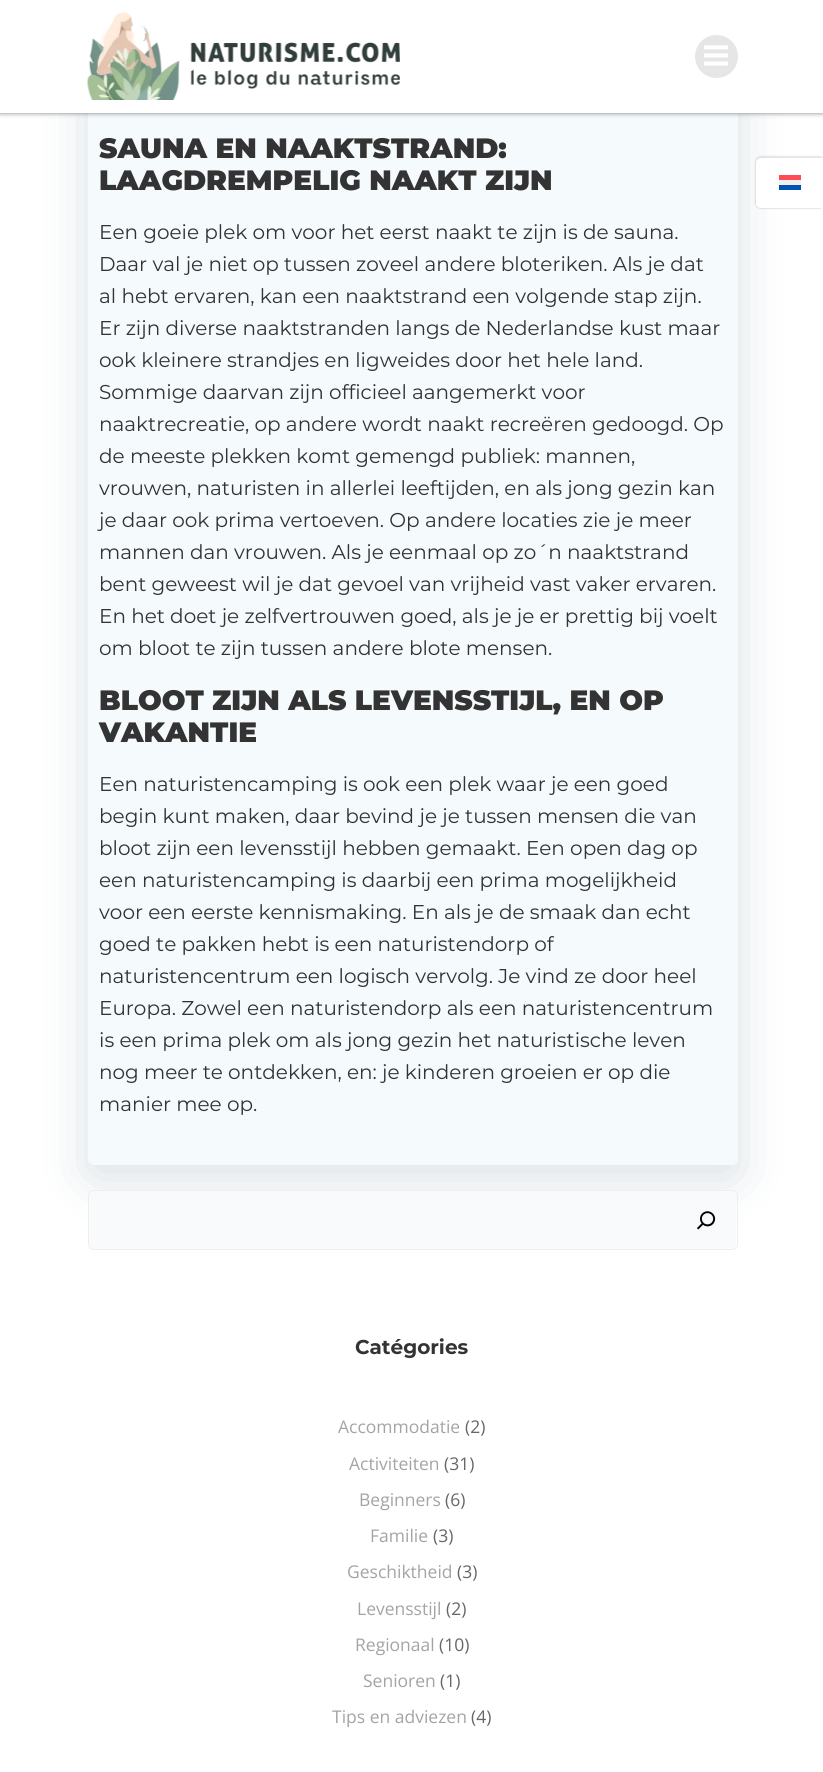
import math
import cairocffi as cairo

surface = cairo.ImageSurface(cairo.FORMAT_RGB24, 823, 1772)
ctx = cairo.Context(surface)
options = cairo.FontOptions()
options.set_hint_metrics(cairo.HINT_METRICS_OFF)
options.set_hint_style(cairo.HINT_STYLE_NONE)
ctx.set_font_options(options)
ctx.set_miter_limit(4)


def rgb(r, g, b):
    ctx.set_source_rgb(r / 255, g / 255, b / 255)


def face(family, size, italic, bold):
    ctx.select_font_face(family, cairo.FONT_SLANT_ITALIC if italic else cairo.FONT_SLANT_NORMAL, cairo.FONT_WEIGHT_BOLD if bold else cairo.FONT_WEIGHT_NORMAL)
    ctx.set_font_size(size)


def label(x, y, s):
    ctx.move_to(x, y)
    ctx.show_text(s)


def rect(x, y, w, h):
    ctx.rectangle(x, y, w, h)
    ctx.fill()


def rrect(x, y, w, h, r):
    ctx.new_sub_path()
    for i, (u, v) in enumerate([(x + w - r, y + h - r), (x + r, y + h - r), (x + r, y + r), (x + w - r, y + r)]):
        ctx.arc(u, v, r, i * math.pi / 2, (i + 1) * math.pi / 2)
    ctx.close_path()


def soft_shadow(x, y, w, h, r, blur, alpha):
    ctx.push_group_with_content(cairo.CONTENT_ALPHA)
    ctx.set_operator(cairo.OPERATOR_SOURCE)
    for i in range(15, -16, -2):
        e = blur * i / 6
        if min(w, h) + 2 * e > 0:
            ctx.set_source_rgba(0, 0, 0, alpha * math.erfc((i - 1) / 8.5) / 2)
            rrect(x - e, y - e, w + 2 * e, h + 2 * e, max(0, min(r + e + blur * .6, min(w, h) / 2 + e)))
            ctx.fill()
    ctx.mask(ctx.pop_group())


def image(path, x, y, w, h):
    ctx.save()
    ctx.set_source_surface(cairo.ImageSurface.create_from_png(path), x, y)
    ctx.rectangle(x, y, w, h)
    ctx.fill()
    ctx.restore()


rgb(255, 255, 255)
ctx.paint()
rgb(1, 51, 74)
soft_shadow(88, -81, 650, 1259, 6, 25, 0.15)
rgb(245, 250, 253)
rrect(88, -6, 650, 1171, 6)
ctx.fill()
rgb(0, 0, 0)
soft_shadow(0, 0, 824, 113, 0, 2.5, 0.5)
rgb(255, 255, 255)
rect(0, 0, 823, 113)
image('image0.png', 87, 12, 313, 88)
rgb(230, 230, 230)
ctx.arc(716.5, 56.5, 21.5, 0, 2 * math.pi)
ctx.fill()
image('image1.png', 704, 45, 24, 21)
face('Montserrat Black', 28, 0, 0)
rgb(51, 51, 51)
label(99, 158, 'SAUNA EN NAAKTSTRAND:')
label(99, 190, 'LAAGDREMPELIG NAAKT ZIJN')
face('Montserrat', 20, 0, 0)
label(99, 239, 'Een goeie plek om voor het eerst naakt te zijn is de sauna.')
label(99, 271, 'Daar val je niet op tussen zoveel andere bloteriken. Als je dat')
label(99, 303, 'al hebt ervaren, kan een naaktstrand een volgende stap zijn.')
label(99, 335, 'Er zijn diverse naaktstranden langs de Nederlandse kust maar')
label(99, 367, 'ook kleinere strandjes en ligweides door het hele land.')
label(99, 399, 'Sommige daarvan zijn officieel aangemerkt voor')
label(99, 431, 'naaktrecreatie, op andere wordt naakt recreëren gedoogd. Op')
label(99, 463, 'de meeste plekken komt gemengd publiek: mannen,')
label(99, 495, 'vrouwen, naturisten in allerlei leeftijden, en als jong gezin kan')
label(99, 527, 'je daar ook prima vertoeven. Op andere locaties zie je meer')
label(99, 559, 'mannen dan vrouwen. Als je eenmaal op zo´n naaktstrand')
label(99, 591, 'bent geweest wil je dat gevoel van vrijheid vast vaker ervaren.')
label(99, 623, 'En het doet je zelfvertrouwen goed, als je je er prettig bij voelt')
label(99, 655, 'om bloot te zijn tussen andere blote mensen.')
face('Montserrat Black', 28, 0, 0)
label(99, 710, 'BLOOT ZIJN ALS LEVENSSTIJL, EN OP')
label(99, 742, 'VAKANTIE')
face('Montserrat', 20, 0, 0)
label(99, 791, 'Een naturistencamping is ook een plek waar je een goed')
label(99, 823, 'begin kunt maken, daar bevind je je tussen mensen die van')
label(99, 855, 'bloot zijn een levensstijl hebben gemaakt. Een open dag op')
label(99, 887, 'een naturistencamping is daarbij een prima mogelijkheid')
label(99, 919, 'voor een eerste kennismaking. En als je de smaak dan echt')
label(99, 951, 'goed te pakken hebt is een naturistendorp of')
label(99, 983, 'naturistencentrum een logisch vervolg. Je vind ze door heel')
label(99, 1015, 'Europa. Zowel een naturistendorp als een naturistencentrum')
label(99, 1047, 'is een prima plek om als jong gezin het naturistische leven')
label(99, 1079, 'nog meer te ontdekken, en: je kinderen groeien er op die')
label(99, 1111, 'manier mee op.')
rrect(88.5, 1190.5, 649, 59, 5.5)
rgb(238, 238, 238)
ctx.set_line_width(1)
ctx.stroke()
ctx.save()
rrect(89, 1191, 647, 58, 5)
ctx.clip()
rgb(249, 250, 251)
ctx.new_path()
ctx.move_to(95, 1191)
ctx.line_to(676, 1191)
ctx.line_to(676, 1249)
ctx.line_to(95, 1249)
ctx.curve_to(91.5, 1249, 89, 1246.5, 89, 1243)
ctx.line_to(89, 1197)
ctx.curve_to(89, 1193.5, 91.5, 1191, 95, 1191)
ctx.close_path()
ctx.fill()
ctx.new_path()
ctx.move_to(676, 1191)
ctx.line_to(730, 1191)
ctx.curve_to(733.5, 1191, 736, 1193.5, 736, 1197)
ctx.line_to(736, 1243)
ctx.curve_to(736, 1246.5, 733.5, 1249, 730, 1249)
ctx.line_to(676, 1249)
ctx.close_path()
ctx.fill()
ctx.restore()
image('image2.png', 697, 1211, 19, 19)
face('Montserrat', 20, 0, 1)
rgb(51, 51, 51)
label(355, 1354, 'Catégories')
face('Open Sans', 17.5, 0, 0)
rgb(162, 164, 165)
label(338, 1433, 'Accommodatie')
rgb(102, 102, 102)
label(465, 1433, '(2)')
rgb(162, 164, 165)
label(349, 1470, 'Activiteiten')
rgb(102, 102, 102)
label(444, 1470, '(31)')
rgb(162, 164, 165)
label(359, 1506, 'Beginners')
rgb(102, 102, 102)
label(445, 1506, '(6)')
rgb(162, 164, 165)
label(370, 1542, 'Familie')
rgb(102, 102, 102)
label(433, 1542, '(3)')
rgb(162, 164, 165)
label(347, 1578, 'Geschiktheid')
rgb(102, 102, 102)
label(457, 1578, '(3)')
rgb(162, 164, 165)
label(357, 1615, 'Levensstijl')
rgb(102, 102, 102)
label(446, 1615, '(2)')
rgb(162, 164, 165)
label(355, 1651, 'Regionaal')
rgb(102, 102, 102)
label(439, 1651, '(10)')
rgb(162, 164, 165)
label(363, 1687, 'Senioren')
rgb(102, 102, 102)
label(440, 1687, '(1)')
rgb(162, 164, 165)
label(332, 1723, 'Tips en adviezen')
rgb(102, 102, 102)
label(471, 1723, '(4)')
rgb(0, 0, 0)
soft_shadow(755, 156, 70, 53, 6, 0.5, 0.1)
rgb(255, 255, 255)
ctx.new_path()
ctx.move_to(761, 158)
ctx.line_to(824, 158)
ctx.line_to(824, 208)
ctx.line_to(761, 208)
ctx.curve_to(758, 208, 756, 206, 756, 203)
ctx.line_to(756, 163)
ctx.curve_to(756, 160, 758, 158, 761, 158)
ctx.close_path()
ctx.fill()
rgb(240, 240, 240)
rect(779, 180, 22, 5)
rgb(0, 82, 180)
rect(779, 185, 22, 5)
rgb(255, 75, 85)
rect(779, 175, 22, 5)
surface.write_to_png('render.png')
